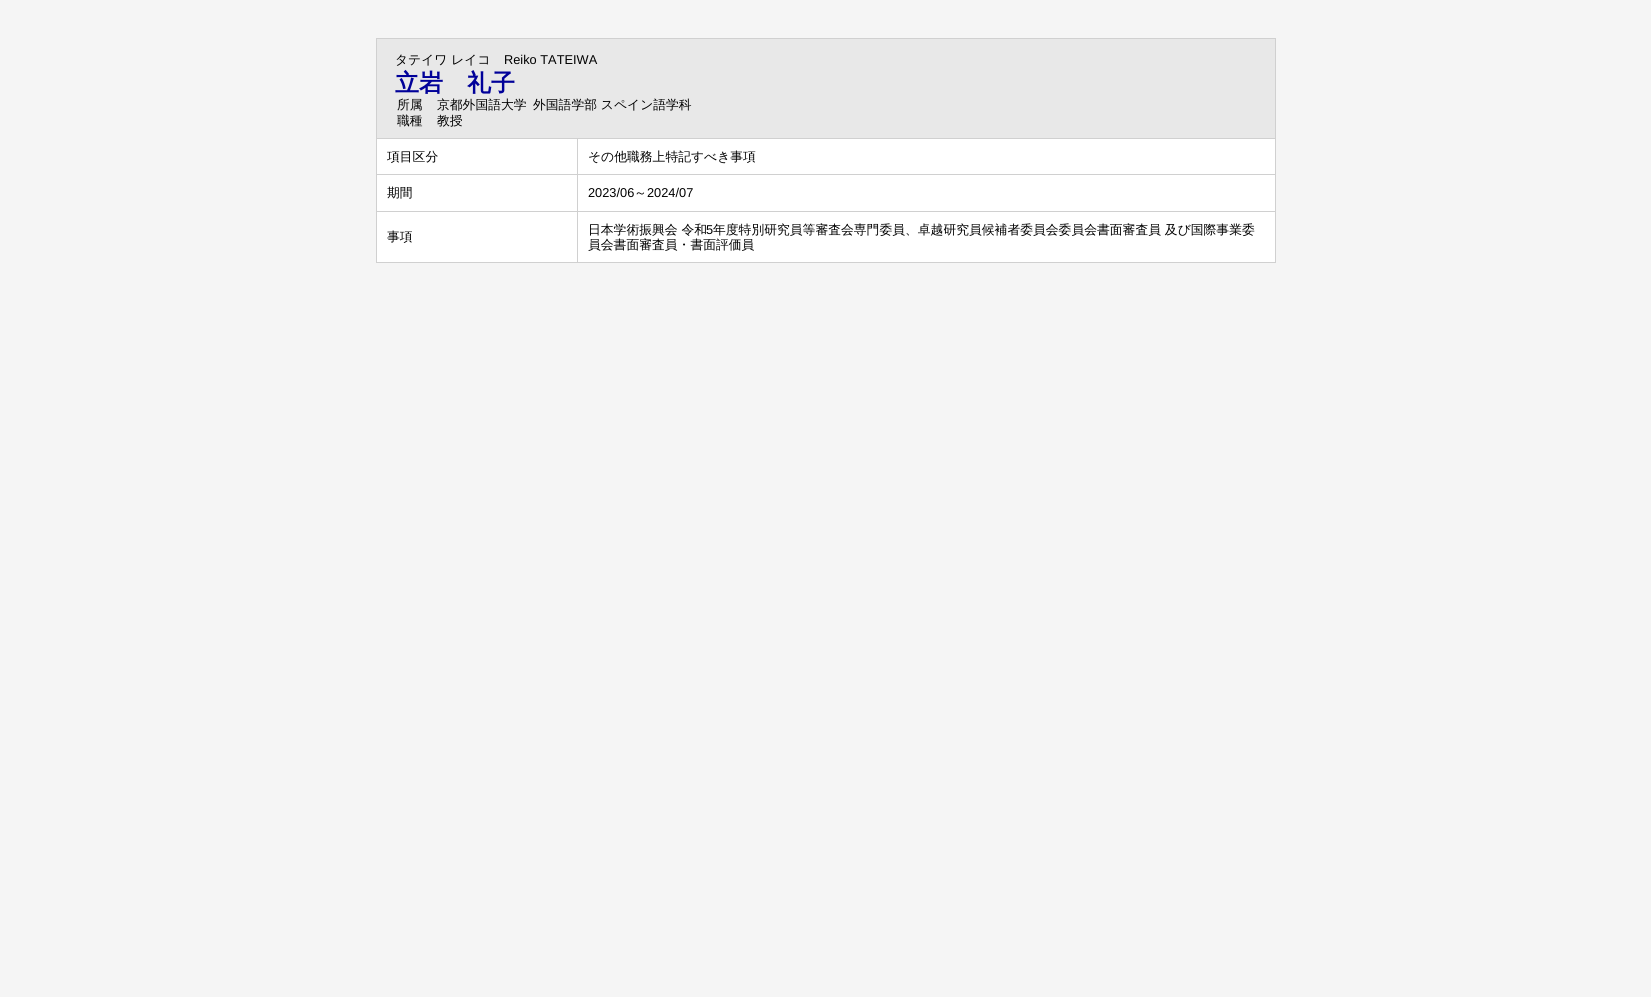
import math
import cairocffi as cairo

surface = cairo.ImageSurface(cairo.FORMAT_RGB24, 1651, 997)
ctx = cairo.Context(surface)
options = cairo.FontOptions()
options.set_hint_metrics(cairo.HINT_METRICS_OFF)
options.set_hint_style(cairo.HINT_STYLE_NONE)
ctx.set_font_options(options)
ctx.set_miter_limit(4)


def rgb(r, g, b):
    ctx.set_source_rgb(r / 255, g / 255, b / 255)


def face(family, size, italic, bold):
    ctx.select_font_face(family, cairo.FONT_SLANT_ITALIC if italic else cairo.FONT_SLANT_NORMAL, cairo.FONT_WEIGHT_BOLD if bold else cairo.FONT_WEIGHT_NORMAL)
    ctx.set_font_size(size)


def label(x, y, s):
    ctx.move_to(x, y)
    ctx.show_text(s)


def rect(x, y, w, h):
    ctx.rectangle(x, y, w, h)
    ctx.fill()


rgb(245, 245, 245)
ctx.paint()
rgb(208, 208, 208)
rect(376, 38, 900, 225)
rgb(232, 232, 232)
rect(377, 39, 898, 99)
face('WenQuanYi Zen Hei Medium', 12.8, 0, 0)
rgb(0, 0, 0)
label(395, 64, 'タテイワ レイコ')
face('Liberation Sans', 12.8, 0, 0)
label(504, 64, 'Reiko TATEIWA')
face('WenQuanYi Zen Hei', 24, 0, 1)
rgb(0, 0, 153)
label(395, 91, '立岩　礼子')
face('WenQuanYi Zen Hei Medium', 12.8, 0, 0)
rgb(0, 0, 0)
label(397, 109, '所属')
label(437, 109, '京都外国語大学')
label(533, 109, '外国語学部 スペイン語学科')
label(397, 125, '職種')
label(437, 125, '教授')
rgb(255, 255, 255)
rect(377, 139, 200, 35)
rgb(0, 0, 0)
label(387, 161, '項目区分')
rgb(255, 255, 255)
rect(578, 139, 697, 35)
rgb(0, 0, 0)
label(588, 161, 'その他職務上特記すべき事項')
rgb(255, 255, 255)
rect(377, 175, 200, 36)
rgb(0, 0, 0)
label(387, 197, '期間')
rgb(255, 255, 255)
rect(578, 175, 697, 36)
face('Liberation Sans', 12.8, 0, 0)
rgb(0, 0, 0)
label(588, 197, '2023/06')
face('WenQuanYi Zen Hei Medium', 12.8, 0, 0)
label(634, 197, '～')
face('Liberation Sans', 12.8, 0, 0)
label(647, 197, '2024/07')
rgb(255, 255, 255)
rect(377, 212, 200, 50)
face('WenQuanYi Zen Hei Medium', 12.8, 0, 0)
rgb(0, 0, 0)
label(387, 241, '事項')
rgb(255, 255, 255)
rect(578, 212, 697, 50)
rgb(0, 0, 0)
label(588, 234, '日本学術振興会 令和')
face('Liberation Sans', 12.8, 0, 0)
label(706, 234, '5')
face('WenQuanYi Zen Hei Medium', 12.8, 0, 0)
label(713, 234, '年度特別研究員等審査会専門委員、卓越研究員候補者委員会委員会書面審査員 及び国際事業委')
label(588, 249, '員会書面審査員・書面評価員')
surface.write_to_png('render.png')
